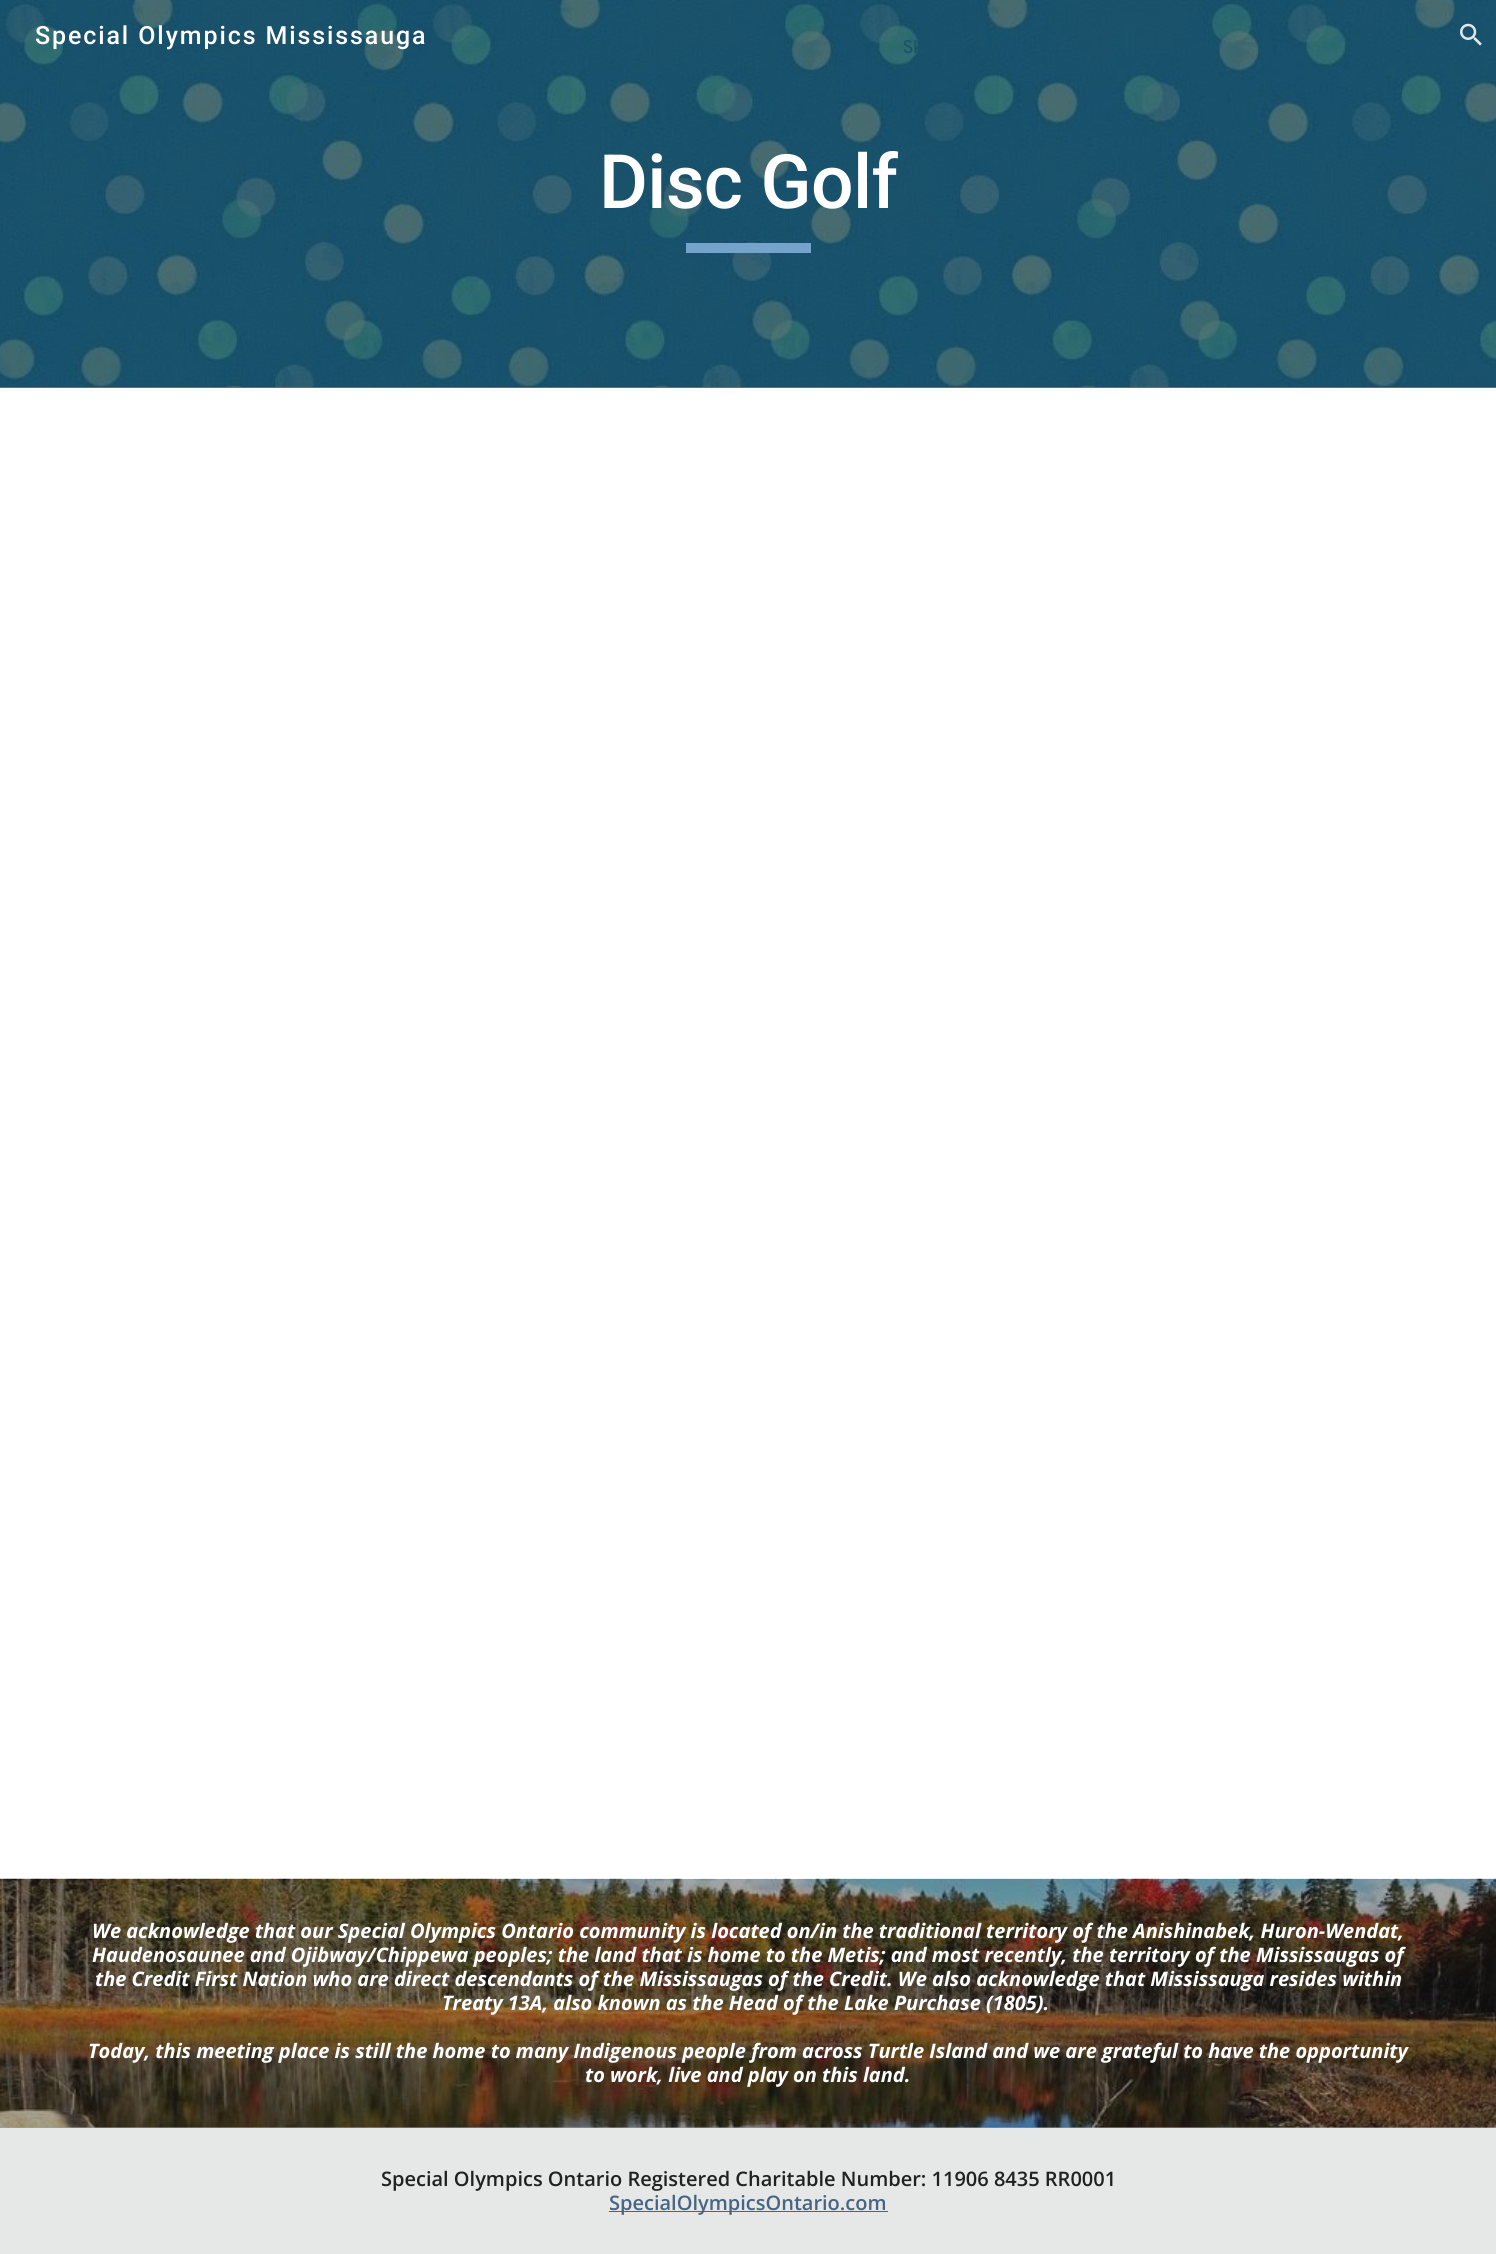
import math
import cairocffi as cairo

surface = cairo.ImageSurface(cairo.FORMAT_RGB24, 1496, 2254)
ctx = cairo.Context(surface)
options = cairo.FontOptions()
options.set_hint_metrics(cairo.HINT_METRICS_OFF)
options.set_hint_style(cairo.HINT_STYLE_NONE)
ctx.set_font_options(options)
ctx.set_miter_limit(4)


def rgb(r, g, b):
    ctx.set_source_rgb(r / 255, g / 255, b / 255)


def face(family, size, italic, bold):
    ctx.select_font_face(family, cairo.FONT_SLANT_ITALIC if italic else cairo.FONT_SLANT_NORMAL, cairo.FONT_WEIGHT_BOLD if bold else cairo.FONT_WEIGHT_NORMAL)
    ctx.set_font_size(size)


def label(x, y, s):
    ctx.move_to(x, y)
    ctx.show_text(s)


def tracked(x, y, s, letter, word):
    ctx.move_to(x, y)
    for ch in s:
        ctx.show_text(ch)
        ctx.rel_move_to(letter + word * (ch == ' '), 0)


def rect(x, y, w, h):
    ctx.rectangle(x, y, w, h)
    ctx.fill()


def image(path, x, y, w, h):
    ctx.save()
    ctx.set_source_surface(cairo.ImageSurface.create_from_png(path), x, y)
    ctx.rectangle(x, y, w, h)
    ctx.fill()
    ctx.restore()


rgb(255, 255, 255)
ctx.paint()
rgb(166, 166, 166)
rect(0, 2127, 1496, 1)
rgb(122, 122, 122)
rect(0, 387, 1496, 1)
image('image1.png', 0, 0, 1496, 388)
face('Roboto Medium', 25, 0, 0)
rgb(255, 255, 255)
tracked(35, 44, 'Special Olympics Mississauga', 1.9, 0)
image('image0.png', 1460, 23, 22, 23)
face('Roboto Medium', 75, 0, 0)
tracked(599, 208, 'Disc Golf', -0.6, 0)
rgb(116, 164, 203)
rect(686, 243, 125, 10)
image('image2.png', 0, 1878, 1496, 250)
face('Open Sans', 20, 1, 1)
rgb(255, 255, 255)
label(92, 1938, 'We acknowledge that our Special Olympics Ontario community is located on/in the traditional territory of the Anishinabek, Huron-Wendat,')
label(92, 1962, 'Haudenosaunee and Ojibway/Chippewa peoples; the land that is home to the Metis; and most recently, the territory of the Mississaugas of')
label(95, 1986, 'the Credit First Nation who are direct descendants of the Mississaugas of the Credit. We also acknowledge that Mississauga resides within')
label(442, 2010, 'Treaty 13A, also known as the Head of the Lake Purchase (1805).')
label(88, 2058, 'Today, this meeting place is still the home to many Indigenous people from across Turtle Island and we are grateful to have the opportunity')
label(585, 2082, 'to work, live and play on this land.')
rgb(230, 231, 231)
rect(0, 2128, 1496, 126)
face('Open Sans SemiBold', 20, 0, 0)
rgb(33, 33, 33)
label(381, 2186, 'Special Olympics Ontario Registered Charitable Number: 11906 8435 RR0001')
rgb(71, 101, 129)
rect(609, 2211, 279, 1)
label(609, 2210, 'SpecialOlympicsOntario.com')
face('Google Sans Medium', 18, 0, 0)
rgb(26, 84, 108)
label(903, 53, 'Sk')
surface.write_to_png('render.png')
